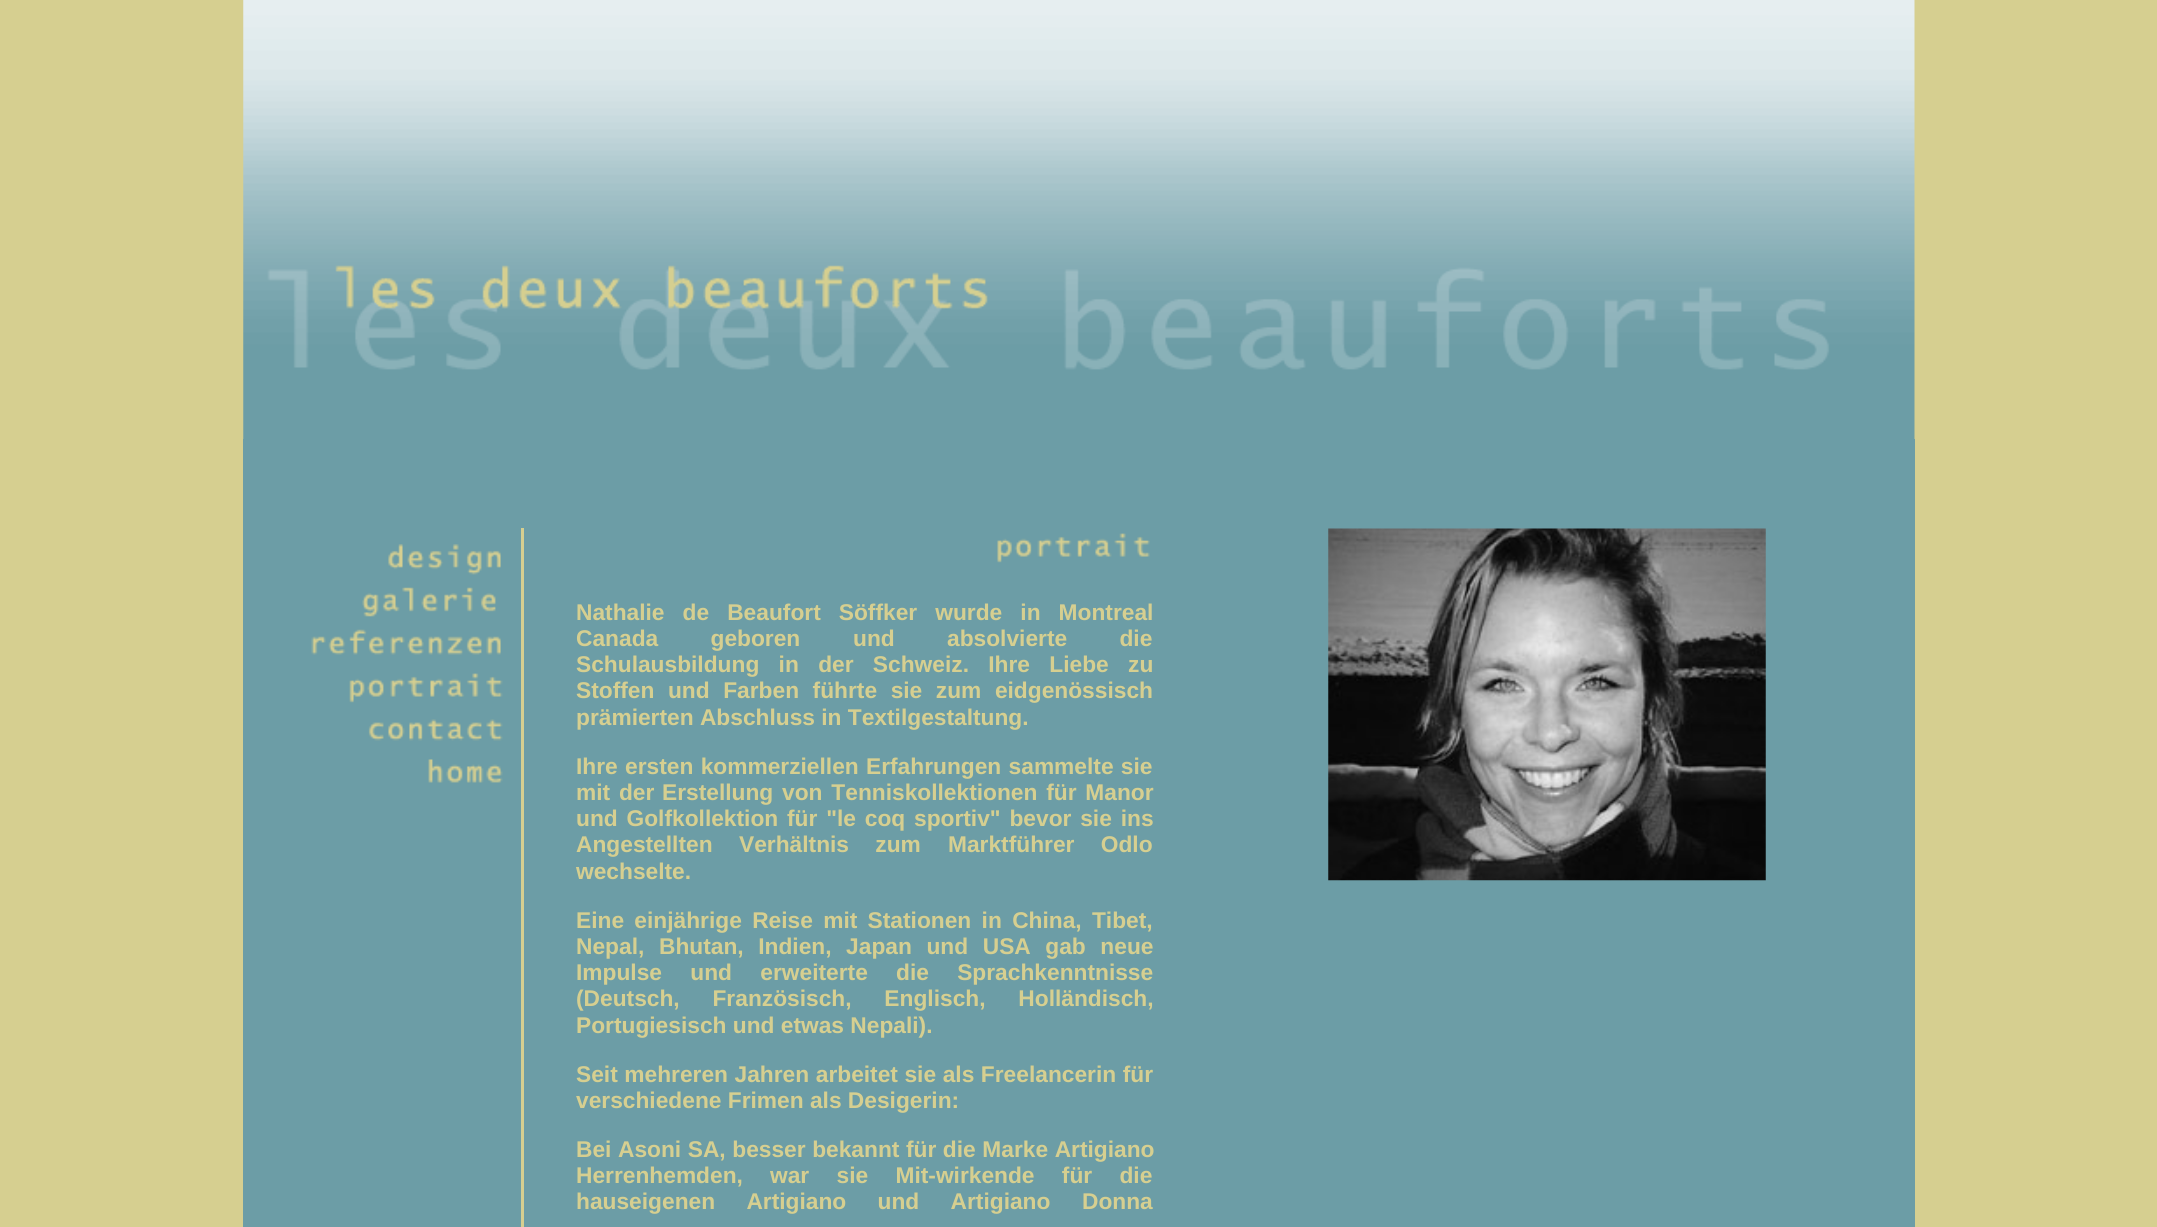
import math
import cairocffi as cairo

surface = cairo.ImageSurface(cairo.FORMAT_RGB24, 2157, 1227)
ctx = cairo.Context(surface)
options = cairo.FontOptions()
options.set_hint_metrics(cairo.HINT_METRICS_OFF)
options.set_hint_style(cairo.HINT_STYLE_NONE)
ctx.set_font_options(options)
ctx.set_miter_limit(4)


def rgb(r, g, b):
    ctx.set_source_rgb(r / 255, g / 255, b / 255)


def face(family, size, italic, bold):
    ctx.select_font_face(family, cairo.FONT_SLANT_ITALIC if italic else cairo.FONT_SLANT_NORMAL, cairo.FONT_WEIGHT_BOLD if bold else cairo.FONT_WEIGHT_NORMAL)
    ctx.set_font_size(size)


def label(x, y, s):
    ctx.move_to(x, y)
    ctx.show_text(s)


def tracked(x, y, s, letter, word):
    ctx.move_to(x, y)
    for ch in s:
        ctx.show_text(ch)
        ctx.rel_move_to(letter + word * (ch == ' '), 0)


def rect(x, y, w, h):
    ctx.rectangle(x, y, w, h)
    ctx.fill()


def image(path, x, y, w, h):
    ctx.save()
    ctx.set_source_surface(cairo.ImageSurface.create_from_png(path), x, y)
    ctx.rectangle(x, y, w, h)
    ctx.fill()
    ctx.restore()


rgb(214, 207, 144)
ctx.paint()
image('image0.png', 243, 0, 1672, 439)
rgb(108, 157, 166)
rect(243, 439, 1672, 90)
rect(243, 529, 278, 698)
image('image1.png', 388, 544, 113, 31)
image('image2.png', 362, 587, 134, 30)
image('image3.png', 311, 629, 190, 26)
image('image4.png', 349, 673, 154, 30)
image('image5.png', 368, 719, 135, 22)
image('image6.png', 428, 759, 75, 24)
rgb(214, 207, 144)
rect(521, 528, 3, 1)
rgb(108, 157, 166)
rect(524, 529, 1391, 698)
image('image7.png', 1328, 528, 438, 353)
image('image8.png', 997, 533, 153, 30)
face('Liberation Sans', 22.75, 0, 1)
rgb(214, 207, 144)
tracked(576, 620, 'Nathalie de Beaufort Söffker wurde in Montreal', 0, 11.75)
tracked(576, 646, 'Canada geboren', 0, 46)
tracked(853, 646, 'und absolvierte die', 0, 46)
tracked(576, 672, 'Schulausbildung in der Schweiz. Ihre Liebe', 0, 13)
label(1128, 672, 'zu')
tracked(576, 698, 'Stoffen und Farben führte sie zum eidgenössisch', 0, 7.25)
label(576, 725, 'prämierten Abschluss in Textilgestaltung.')
tracked(576, 774, 'Ihre ersten kommerziellen Erfahrungen sammelte sie', 0, 1)
tracked(576, 800, 'mit der', 0, 2.5)
tracked(662, 800, 'Erstellung von Tenniskollektionen für Manor', 0, 2.5)
tracked(576, 826, 'und Golfkollektion', 0, 2.5)
tracked(787, 826, 'für "le coq sportiv" bevor sie ins', 0, 2.5)
label(576, 852, 'Angestellten')
tracked(739, 852, 'Verhältnis zum', 0, 20)
tracked(948, 852, 'Marktführer Odlo', 0, 20)
label(576, 879, 'wechselte.')
tracked(576, 928, 'Eine einjährige Reise mit Stationen in China, Tibet,', 0, 4)
label(576, 954, 'Nepal,')
tracked(659, 954, 'Bhutan, Indien, Japan und USA gab neue', 0, 8.25)
tracked(576, 980, 'Impulse und erweiterte', 0, 22)
tracked(896, 980, 'die Sprachkenntnisse', 0, 22)
tracked(576, 1006, '(Deutsch, Französisch, Englisch, Holländisch,', 0, 26.5)
label(576, 1033, 'Portugiesisch und etwas Nepali).')
tracked(576, 1082, 'Seit mehreren Jahren arbeitet sie als Freelancerin für', 0, 0.25)
label(576, 1108, 'verschiedene Frimen als Desigerin:')
tracked(576, 1157, 'Bei Asoni SA, besser bekannt für die Marke Artigiano', 0, 0.25)
label(576, 1183, 'Herrenhemden,')
tracked(770, 1183, 'war sie Mit-wirkende für die', 0, 21)
tracked(576, 1209, 'hauseigenen Artigiano und Artigiano', 0, 25)
label(1082, 1209, 'Donna')
surface.write_to_png('render.png')
